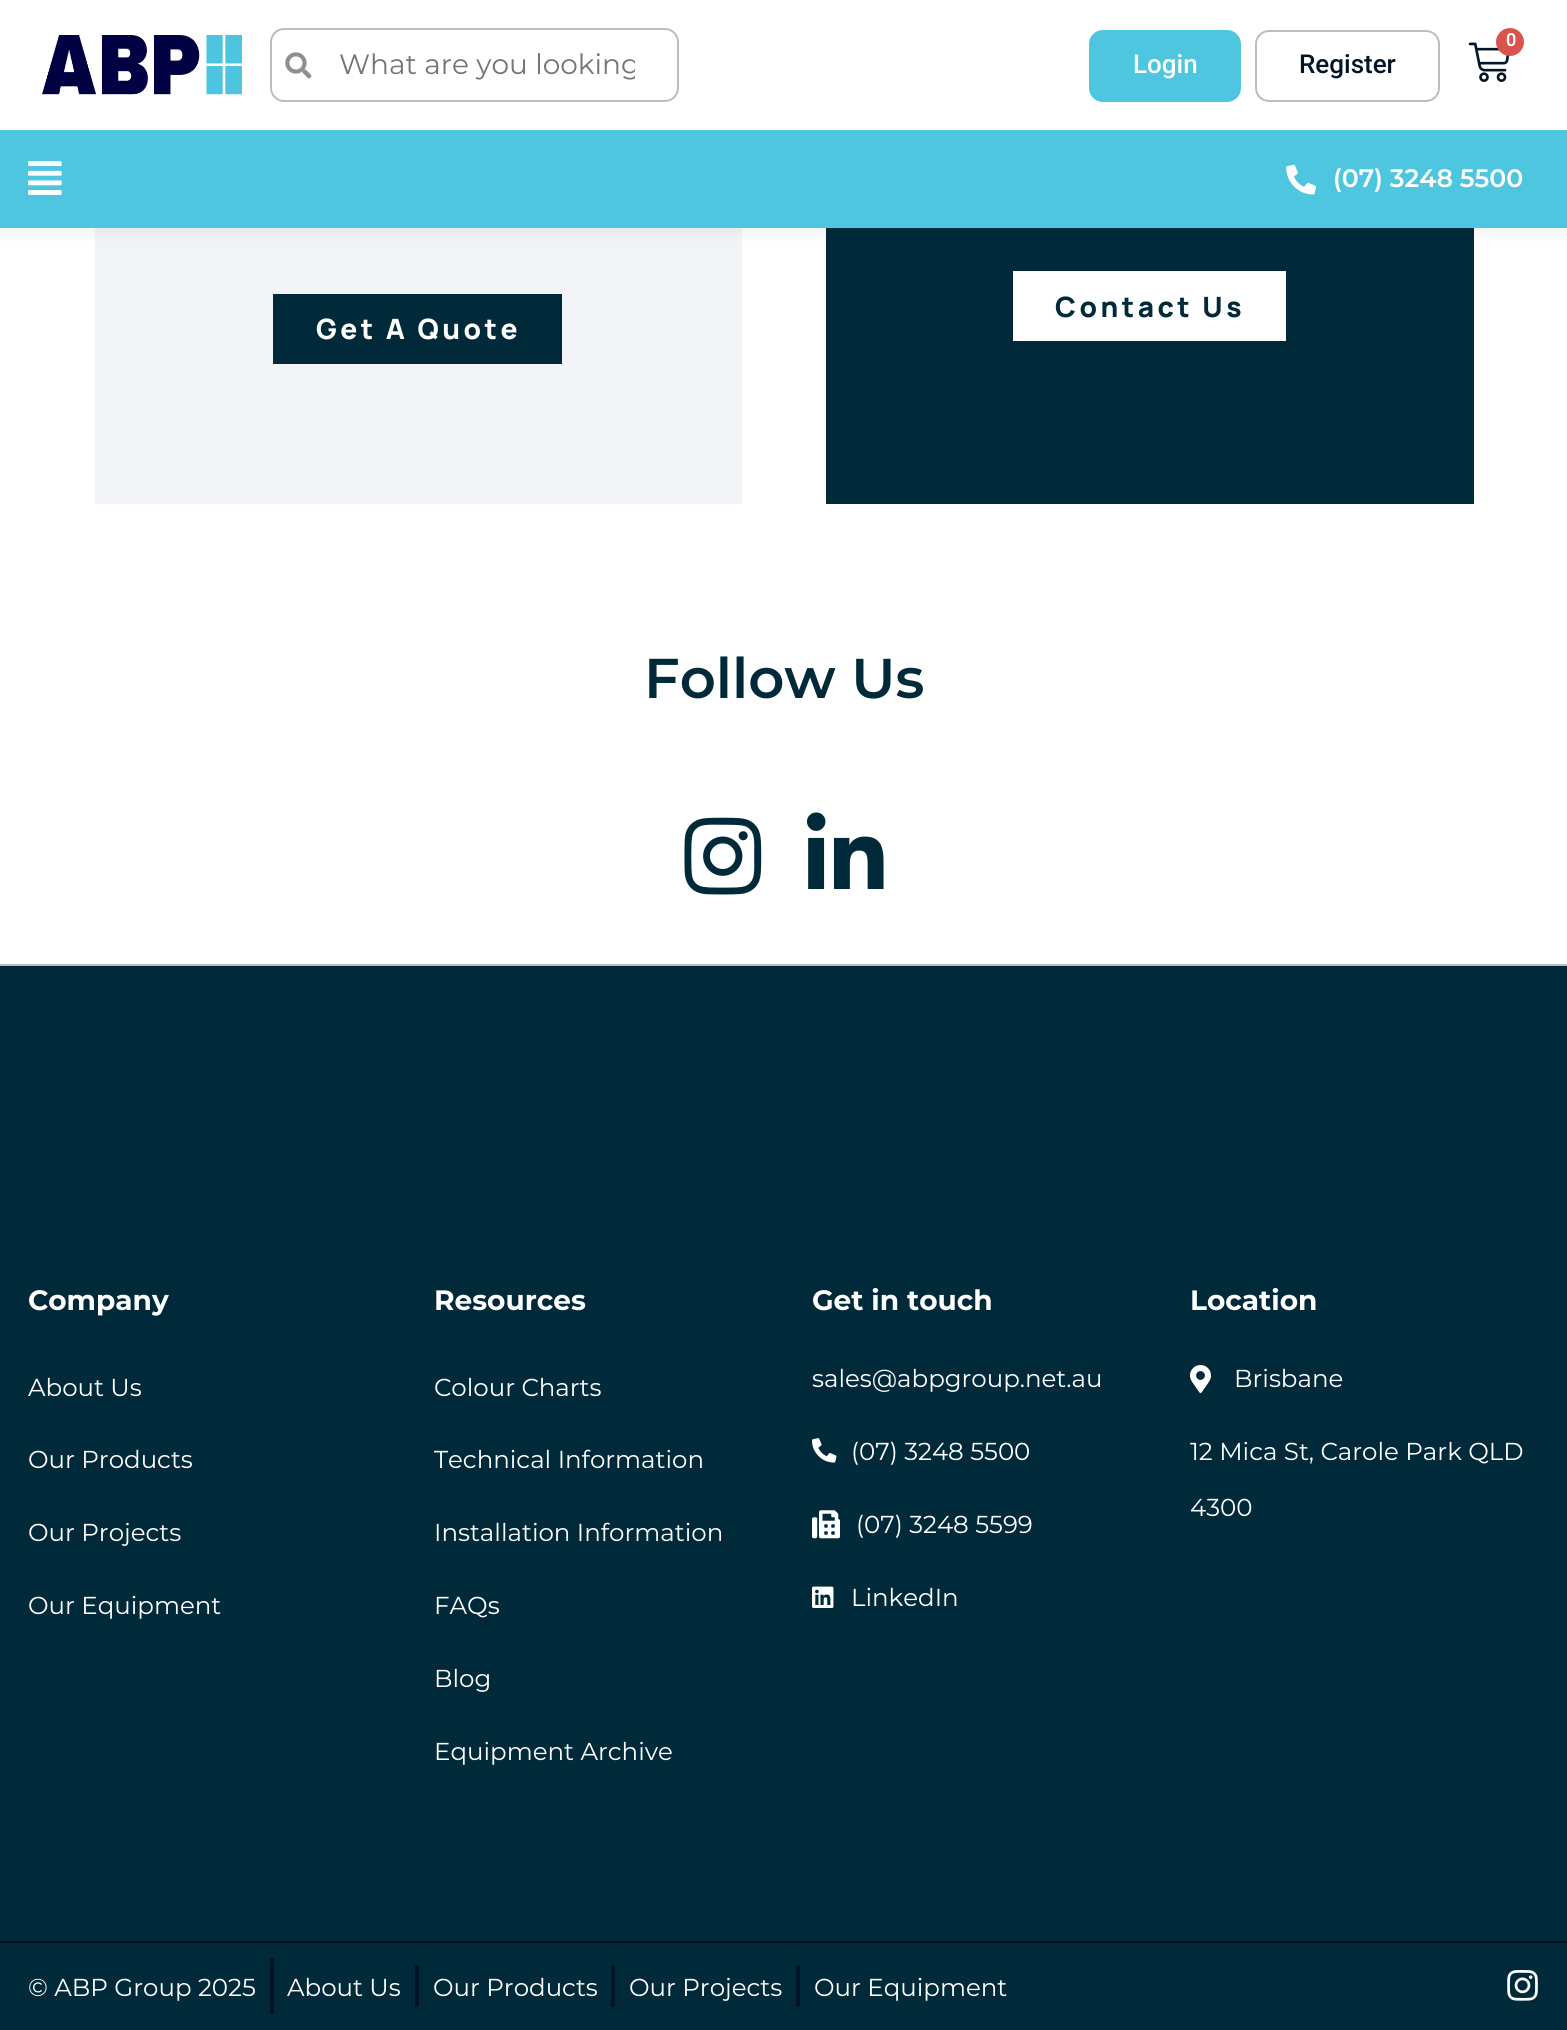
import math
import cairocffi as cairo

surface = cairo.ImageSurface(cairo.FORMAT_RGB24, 1567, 2030)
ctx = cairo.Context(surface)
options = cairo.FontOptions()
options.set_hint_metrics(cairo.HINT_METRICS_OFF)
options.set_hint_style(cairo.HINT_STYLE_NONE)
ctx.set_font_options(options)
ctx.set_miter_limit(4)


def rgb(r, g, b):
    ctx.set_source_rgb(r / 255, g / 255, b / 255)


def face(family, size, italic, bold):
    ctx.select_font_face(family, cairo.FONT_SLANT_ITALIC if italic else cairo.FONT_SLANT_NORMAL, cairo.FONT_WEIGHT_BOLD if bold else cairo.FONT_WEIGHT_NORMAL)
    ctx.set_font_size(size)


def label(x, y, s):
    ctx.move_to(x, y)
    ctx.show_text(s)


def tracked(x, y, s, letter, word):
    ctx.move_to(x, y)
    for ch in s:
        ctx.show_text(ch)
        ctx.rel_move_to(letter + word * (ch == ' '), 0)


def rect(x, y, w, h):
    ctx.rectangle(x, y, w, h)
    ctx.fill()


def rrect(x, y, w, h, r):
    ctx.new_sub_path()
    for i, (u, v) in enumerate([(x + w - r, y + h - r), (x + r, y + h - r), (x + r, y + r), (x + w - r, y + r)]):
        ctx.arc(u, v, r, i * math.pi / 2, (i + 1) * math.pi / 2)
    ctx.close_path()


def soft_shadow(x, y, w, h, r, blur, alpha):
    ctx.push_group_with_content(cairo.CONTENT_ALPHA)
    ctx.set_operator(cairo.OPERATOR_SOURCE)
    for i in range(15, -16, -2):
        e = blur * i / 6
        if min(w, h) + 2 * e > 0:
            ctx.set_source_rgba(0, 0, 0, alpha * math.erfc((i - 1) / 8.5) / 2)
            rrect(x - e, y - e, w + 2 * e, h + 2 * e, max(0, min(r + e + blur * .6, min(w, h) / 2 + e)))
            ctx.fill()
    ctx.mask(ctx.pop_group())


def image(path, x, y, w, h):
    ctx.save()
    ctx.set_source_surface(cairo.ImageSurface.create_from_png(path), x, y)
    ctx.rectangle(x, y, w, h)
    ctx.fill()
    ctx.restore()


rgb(255, 255, 255)
ctx.paint()
rgb(0, 42, 58)
rect(826, 228, 648, 276)
rgb(242, 244, 247)
rect(95, 228, 647, 276)
rgb(0, 0, 0)
soft_shadow(0, 0, 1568, 228, 0, 9, 0.1)
rgb(255, 255, 255)
rect(0, 0, 1567, 130)
image('image0.png', 42, 35, 200, 60)
rrect(271, 29, 407, 72, 13)
rgb(189, 189, 189)
ctx.stroke()
image('image1.png', 285, 52, 27, 27)
ctx.save()
ctx.rectangle(340, 47, 295, 34)
ctx.clip()
face('Montserrat', 28, 0, 0)
rgb(117, 117, 117)
label(339, 74, 'What are you looking')
ctx.restore()
image('image2.png', 1468, 42, 42, 40)
rgb(217, 83, 79)
ctx.arc(1510, 42, 14, 0, 2 * math.pi)
ctx.fill()
face('Roboto SemiBold', 18, 0, 0)
rgb(255, 255, 255)
label(1506, 46, '0')
rgb(79, 198, 224)
rrect(1090, 31, 150, 70, 13)
ctx.fill_preserve()
ctx.stroke()
face('Roboto Medium', 26, 0, 0)
rgb(255, 255, 255)
label(1133, 73, 'Login')
rrect(1256, 31, 183, 70, 13)
rgb(189, 189, 189)
ctx.stroke()
rgb(0, 21, 39)
label(1299, 73, 'Register')
rgb(79, 198, 224)
rect(0, 130, 1567, 98)
image('image3.png', 28, 161, 34, 34)
image('image4.png', 1286, 164, 30, 31)
face('Montserrat SemiBold', 25.25, 0, 0)
rgb(255, 255, 255)
label(1333, 187, '(07) 3248 5500')
rect(1013, 271, 273, 70)
face('Manrope ExtraBold', 28, 0, 0)
rgb(0, 42, 58)
tracked(1055, 317, 'Contact Us', 3.5, 0)
rect(273, 294, 289, 70)
rgb(255, 255, 255)
tracked(316, 339, 'Get A Quote', 3.5, 0)
face('Montserrat SemiBold', 56, 0, 0)
rgb(0, 42, 58)
label(644, 698, 'Follow Us')
image('image5.png', 684, 817, 78, 78)
image('image6.png', 807, 812, 77, 77)
rect(0, 966, 1567, 975)
rgb(189, 189, 189)
rect(0, 964, 1567, 2)
face('Montserrat', 28, 0, 1)
rgb(255, 255, 255)
label(28, 1310, 'Company')
face('Montserrat', 24.5, 0, 0)
label(28, 1396, 'About Us')
label(28, 1468, 'Our Products')
label(28, 1541, 'Our Projects')
label(28, 1614, 'Our Equipment')
face('Montserrat', 28, 0, 1)
label(434, 1310, 'Resources')
face('Montserrat', 24.5, 0, 0)
label(434, 1396, 'Colour Charts')
label(434, 1468, 'Technical Information')
label(434, 1541, 'Installation Information')
label(434, 1614, 'FAQs')
label(434, 1687, 'Blog')
label(434, 1760, 'Equipment Archive')
face('Montserrat', 28, 0, 1)
label(812, 1310, 'Get in touch')
face('Montserrat', 24.5, 0, 0)
label(812, 1387, 'sales@abpgroup.net.au')
image('image7.png', 812, 1438, 25, 25)
label(851, 1460, '(07) 3248 5500')
image('image8.png', 812, 1510, 28, 29)
label(856, 1533, '(07) 3248 5599')
image('image9.png', 812, 1586, 22, 22)
label(851, 1606, 'LinkedIn')
face('Montserrat', 28, 0, 1)
label(1190, 1310, 'Location')
image('image10.png', 1190, 1365, 21, 28)
face('Montserrat', 24.5, 0, 0)
label(1234, 1387, 'Brisbane')
label(1190, 1460, '12 Mica St, Carole Park QLD')
label(1190, 1516, '4300')
rgb(0, 42, 58)
rect(0, 1943, 1567, 87)
rgb(0, 21, 39)
rect(0, 1941, 1567, 2)
rect(270, 1958, 4, 56)
rgb(255, 255, 255)
label(28, 1996, '© ABP Group 2025')
label(287, 1996, 'About Us')
rgb(0, 21, 39)
rect(415, 1965, 4, 42)
rgb(255, 255, 255)
label(433, 1996, 'Our Products')
rgb(0, 21, 39)
rect(611, 1965, 4, 42)
rgb(255, 255, 255)
label(629, 1996, 'Our Projects')
rgb(0, 21, 39)
rect(796, 1965, 4, 42)
rgb(255, 255, 255)
label(814, 1996, 'Our Equipment')
image('image11.png', 1507, 1970, 31, 31)
surface.write_to_png('render.png')
